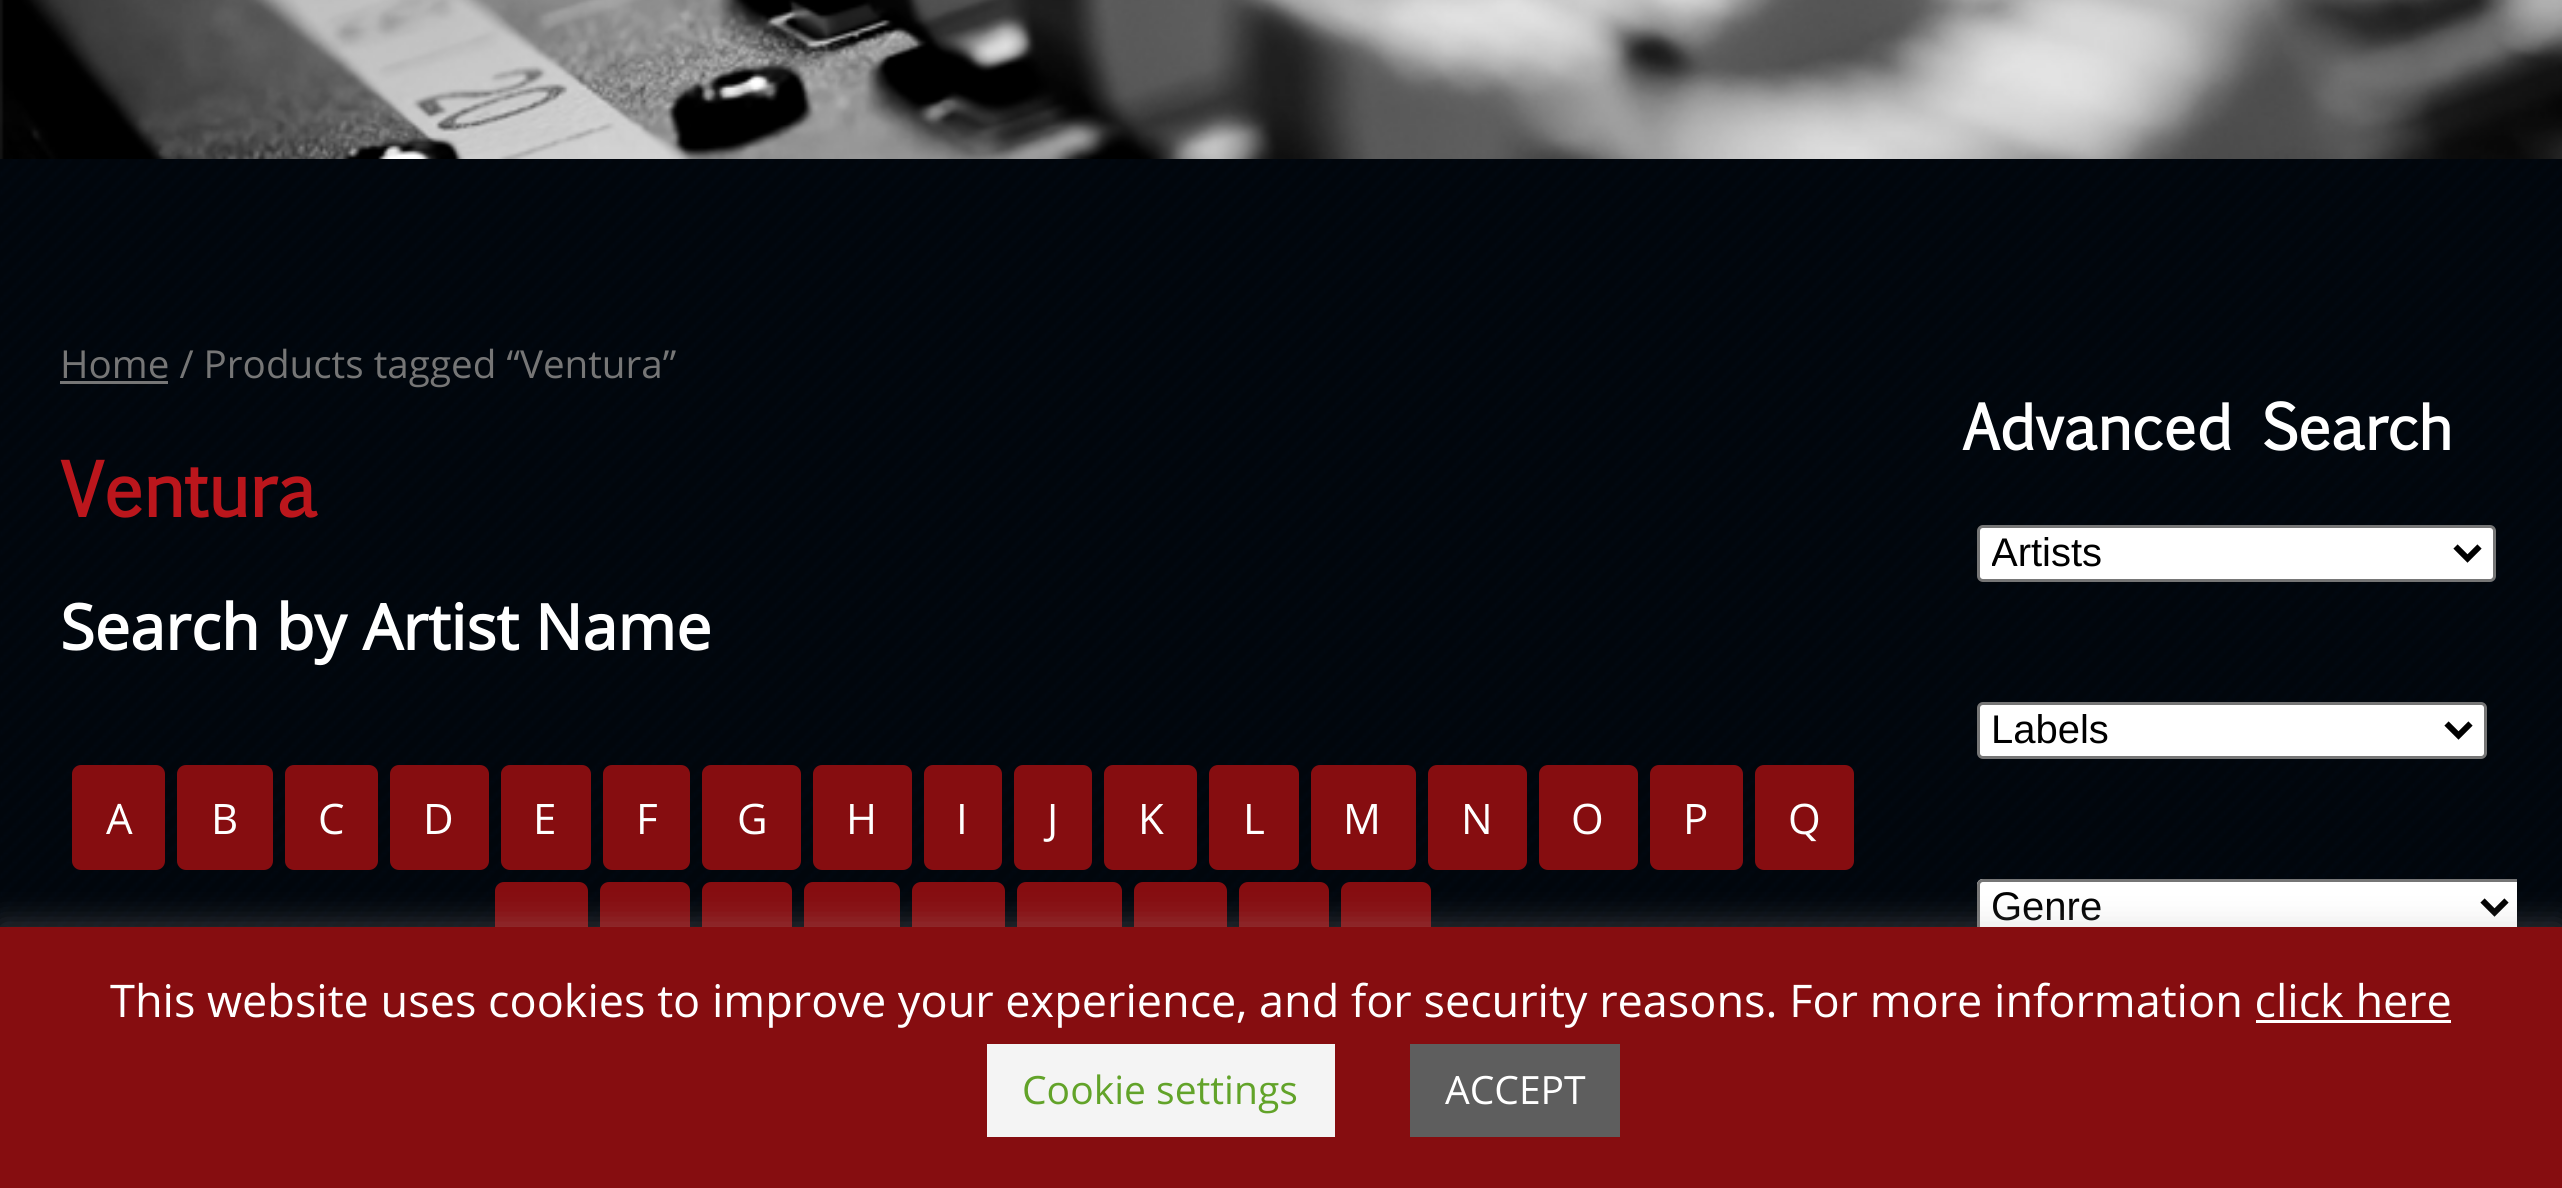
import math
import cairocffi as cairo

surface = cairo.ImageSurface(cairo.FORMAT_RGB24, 2562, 1188)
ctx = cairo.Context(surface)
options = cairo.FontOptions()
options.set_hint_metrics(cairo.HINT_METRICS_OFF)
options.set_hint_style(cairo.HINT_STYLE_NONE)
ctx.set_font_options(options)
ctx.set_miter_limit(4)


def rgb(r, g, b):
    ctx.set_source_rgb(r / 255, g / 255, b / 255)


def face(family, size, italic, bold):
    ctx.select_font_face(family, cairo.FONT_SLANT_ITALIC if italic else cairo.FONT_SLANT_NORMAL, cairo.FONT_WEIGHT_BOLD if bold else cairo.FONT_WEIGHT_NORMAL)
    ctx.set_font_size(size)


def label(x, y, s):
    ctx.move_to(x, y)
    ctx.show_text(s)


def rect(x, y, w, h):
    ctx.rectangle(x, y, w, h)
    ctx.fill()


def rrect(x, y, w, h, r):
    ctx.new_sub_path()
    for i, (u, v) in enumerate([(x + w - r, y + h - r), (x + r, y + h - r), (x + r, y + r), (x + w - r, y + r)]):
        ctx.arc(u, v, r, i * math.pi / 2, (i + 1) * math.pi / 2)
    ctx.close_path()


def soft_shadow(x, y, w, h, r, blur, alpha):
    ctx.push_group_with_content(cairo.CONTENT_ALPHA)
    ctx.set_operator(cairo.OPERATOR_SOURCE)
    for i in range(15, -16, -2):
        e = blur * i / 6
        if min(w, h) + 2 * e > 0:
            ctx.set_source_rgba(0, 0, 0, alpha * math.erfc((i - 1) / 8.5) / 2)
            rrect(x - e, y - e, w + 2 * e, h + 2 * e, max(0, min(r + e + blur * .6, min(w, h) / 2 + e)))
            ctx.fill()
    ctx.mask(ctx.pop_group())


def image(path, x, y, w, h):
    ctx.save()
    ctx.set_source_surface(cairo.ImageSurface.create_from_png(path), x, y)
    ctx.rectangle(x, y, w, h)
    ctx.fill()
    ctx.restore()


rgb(255, 255, 255)
ctx.paint()
image('image0.png', 0, 159, 2562, 768)
image('image1.png', 0, 0, 2562, 159)
rgb(118, 118, 118)
rect(60, 381, 108, 3)
face('Open Sans', 38.6, 0, 0)
label(60, 378, 'Home / Products tagged “Ventura”')
face('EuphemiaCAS', 72, 0, 1)
rgb(187, 22, 28)
label(60, 517, 'Ventura')
face('Open Sans', 63, 0, 1)
rgb(255, 255, 255)
label(60, 650, 'Search by Artist Name')
rgb(134, 13, 16)
rrect(72, 765, 93, 105, 9)
ctx.fill()
face('Open Sans', 42, 0, 0)
rgb(255, 255, 255)
label(106, 834, 'A')
rgb(134, 13, 16)
rrect(177, 765, 96, 105, 9)
ctx.fill()
rgb(255, 255, 255)
label(211, 834, 'B')
rgb(134, 13, 16)
rrect(285, 765, 93, 105, 9)
ctx.fill()
rgb(255, 255, 255)
label(318, 834, 'C')
rgb(134, 13, 16)
rrect(390, 765, 99, 105, 9)
ctx.fill()
rgb(255, 255, 255)
label(423, 834, 'D')
rgb(134, 13, 16)
rrect(501, 765, 90, 105, 9)
ctx.fill()
rgb(255, 255, 255)
label(533, 834, 'E')
rgb(134, 13, 16)
rrect(603, 765, 87, 105, 9)
ctx.fill()
rgb(255, 255, 255)
label(636, 834, 'F')
rgb(134, 13, 16)
rrect(702, 765, 99, 105, 9)
ctx.fill()
rgb(255, 255, 255)
label(737, 834, 'G')
rgb(134, 13, 16)
rrect(813, 765, 99, 105, 9)
ctx.fill()
rgb(255, 255, 255)
label(846, 834, 'H')
rgb(134, 13, 16)
rrect(924, 765, 78, 105, 9)
ctx.fill()
rgb(255, 255, 255)
label(956, 834, 'I')
rgb(134, 13, 16)
rrect(1014, 765, 78, 105, 9)
ctx.fill()
rgb(255, 255, 255)
label(1047, 834, 'J')
rgb(134, 13, 16)
rrect(1104, 765, 93, 105, 9)
ctx.fill()
rgb(255, 255, 255)
label(1138, 834, 'K')
rgb(134, 13, 16)
rrect(1209, 765, 90, 105, 9)
ctx.fill()
rgb(255, 255, 255)
label(1243, 834, 'L')
rgb(134, 13, 16)
rrect(1311, 765, 105, 105, 9)
ctx.fill()
rgb(255, 255, 255)
label(1343, 834, 'M')
rgb(134, 13, 16)
rrect(1428, 765, 99, 105, 9)
ctx.fill()
rgb(255, 255, 255)
label(1461, 834, 'N')
rgb(134, 13, 16)
rrect(1539, 765, 99, 105, 9)
ctx.fill()
rgb(255, 255, 255)
label(1571, 834, 'O')
rgb(134, 13, 16)
rrect(1650, 765, 93, 105, 9)
ctx.fill()
rgb(255, 255, 255)
label(1683, 834, 'P')
rgb(134, 13, 16)
rrect(1755, 765, 99, 105, 9)
ctx.fill()
rgb(255, 255, 255)
label(1788, 834, 'Q')
rgb(134, 13, 16)
rrect(495, 882, 93, 108, 9)
ctx.fill()
rrect(600, 882, 90, 108, 9)
ctx.fill()
rrect(702, 882, 90, 108, 9)
ctx.fill()
rrect(804, 882, 96, 108, 9)
ctx.fill()
rrect(912, 882, 93, 108, 9)
ctx.fill()
rrect(1017, 882, 105, 108, 9)
ctx.fill()
rrect(1134, 882, 93, 108, 9)
ctx.fill()
rrect(1239, 882, 90, 108, 9)
ctx.fill()
rrect(1341, 882, 90, 108, 9)
ctx.fill()
face('EuphemiaCAS', 60, 0, 1)
rgb(255, 255, 255)
label(1962, 450, 'Advanced Search')
rrect(1978.5, 526.5, 516, 54, 4.5)
ctx.fill_preserve()
rgb(118, 118, 118)
ctx.set_line_width(3)
ctx.stroke()
ctx.new_path()
ctx.move_to(2455.5, 546.5)
ctx.line_to(2467.5, 558.5)
ctx.line_to(2479.5, 546.5)
rgb(0, 0, 0)
ctx.set_line_width(6)
ctx.stroke()
ctx.save()
ctx.rectangle(1992, 528, 453, 51)
ctx.clip()
face('Liberation Sans', 40, 0, 0)
label(1991, 566, 'Artists')
ctx.restore()
rgb(255, 255, 255)
rrect(1978.5, 703.5, 507, 54, 4.5)
ctx.fill_preserve()
rgb(118, 118, 118)
ctx.set_line_width(3)
ctx.stroke()
ctx.new_path()
ctx.move_to(2446.5, 723.5)
ctx.line_to(2458.5, 735.5)
ctx.line_to(2470.5, 723.5)
rgb(0, 0, 0)
ctx.set_line_width(6)
ctx.stroke()
face('Liberation Sans', 40, 0, 0)
label(1991, 743, 'Labels')
rgb(255, 255, 255)
ctx.new_path()
ctx.move_to(1983, 879)
ctx.line_to(2517, 879)
ctx.line_to(2517, 936)
ctx.line_to(1983, 936)
ctx.curve_to(1979.5, 936, 1977, 933.5, 1977, 930)
ctx.line_to(1977, 885)
ctx.curve_to(1977, 881.5, 1979.5, 879, 1983, 879)
ctx.close_path()
ctx.fill()
ctx.save()
ctx.rectangle(1947, 462, 570, 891)
ctx.clip()
rrect(1978.5, 880.5, 543, 54, 4.5)
rgb(118, 118, 118)
ctx.set_line_width(3)
ctx.stroke()
ctx.restore()
ctx.new_path()
ctx.move_to(2482.5, 900.5)
ctx.line_to(2494.5, 912.5)
ctx.line_to(2506.5, 900.5)
rgb(0, 0, 0)
ctx.stroke()
label(1991, 920, 'Genre')
rgb(172, 171, 171)
soft_shadow(0, 924, 2562, 261, 0, 15, 0.3)
rgb(134, 13, 16)
rect(0, 927, 2562, 261)
face('Open Sans', 45, 0, 0)
rgb(255, 255, 255)
label(110, 1017, 'This website uses cookies to improve your experience, and for security reasons. For more information click here')
rect(2256, 1020, 195, 3)
rgb(244, 244, 244)
rect(987, 1044, 348, 93)
face('Open Sans', 39, 0, 0)
rgb(98, 163, 41)
label(1022, 1104, 'Cookie settings')
rgb(94, 94, 94)
rect(1410, 1044, 210, 93)
rgb(255, 255, 255)
label(1445, 1104, 'ACCEPT')
surface.write_to_png('render.png')
